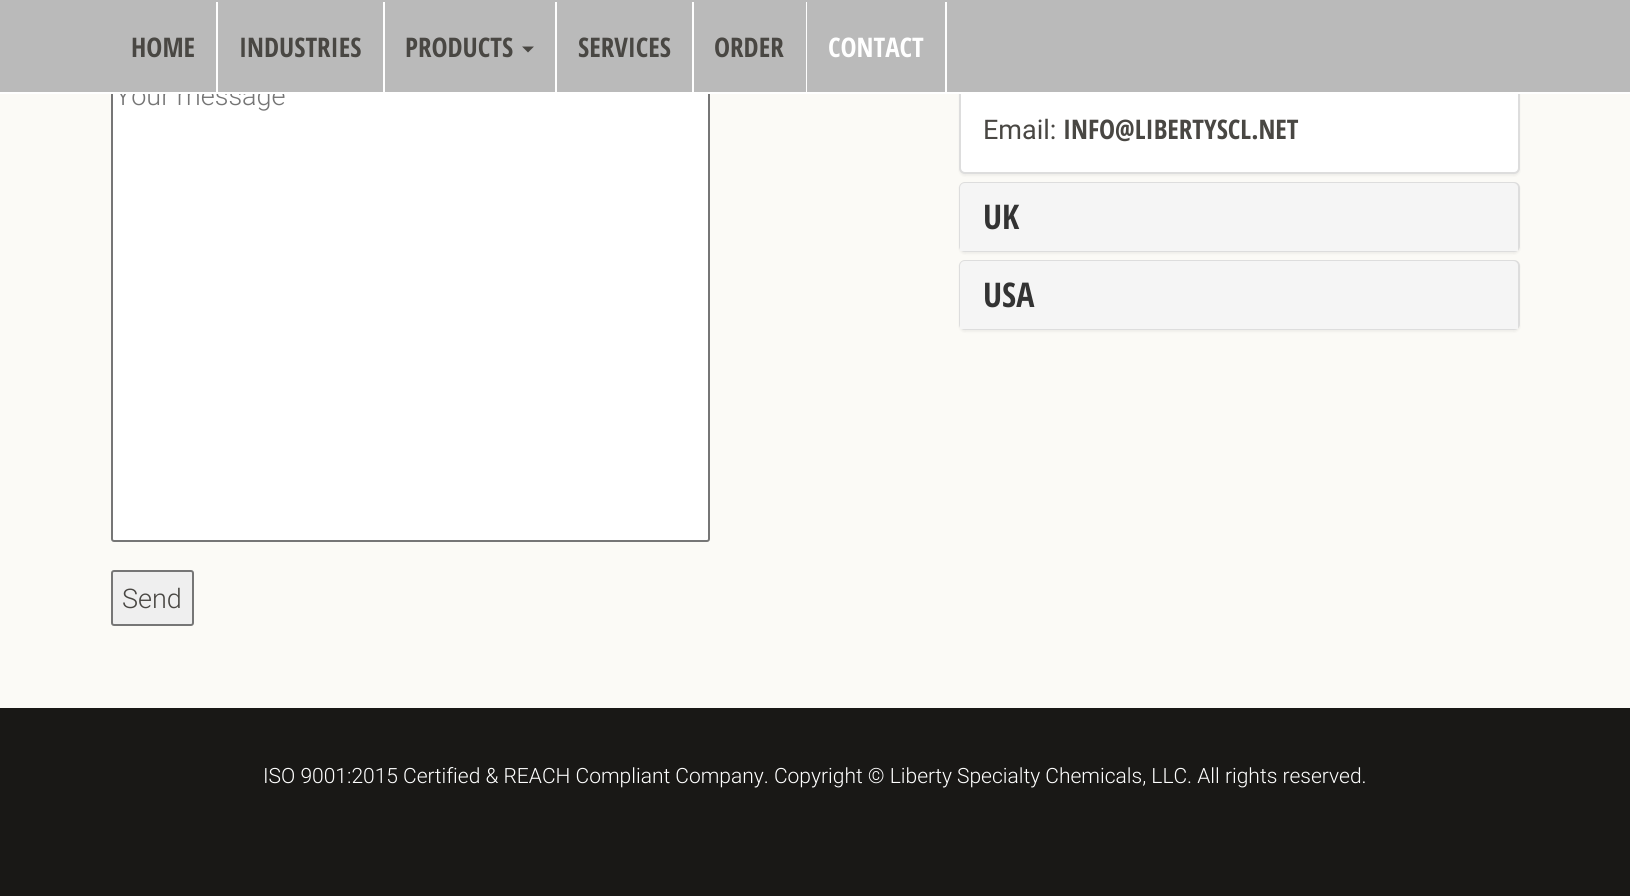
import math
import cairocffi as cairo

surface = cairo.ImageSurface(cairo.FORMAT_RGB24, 1630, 896)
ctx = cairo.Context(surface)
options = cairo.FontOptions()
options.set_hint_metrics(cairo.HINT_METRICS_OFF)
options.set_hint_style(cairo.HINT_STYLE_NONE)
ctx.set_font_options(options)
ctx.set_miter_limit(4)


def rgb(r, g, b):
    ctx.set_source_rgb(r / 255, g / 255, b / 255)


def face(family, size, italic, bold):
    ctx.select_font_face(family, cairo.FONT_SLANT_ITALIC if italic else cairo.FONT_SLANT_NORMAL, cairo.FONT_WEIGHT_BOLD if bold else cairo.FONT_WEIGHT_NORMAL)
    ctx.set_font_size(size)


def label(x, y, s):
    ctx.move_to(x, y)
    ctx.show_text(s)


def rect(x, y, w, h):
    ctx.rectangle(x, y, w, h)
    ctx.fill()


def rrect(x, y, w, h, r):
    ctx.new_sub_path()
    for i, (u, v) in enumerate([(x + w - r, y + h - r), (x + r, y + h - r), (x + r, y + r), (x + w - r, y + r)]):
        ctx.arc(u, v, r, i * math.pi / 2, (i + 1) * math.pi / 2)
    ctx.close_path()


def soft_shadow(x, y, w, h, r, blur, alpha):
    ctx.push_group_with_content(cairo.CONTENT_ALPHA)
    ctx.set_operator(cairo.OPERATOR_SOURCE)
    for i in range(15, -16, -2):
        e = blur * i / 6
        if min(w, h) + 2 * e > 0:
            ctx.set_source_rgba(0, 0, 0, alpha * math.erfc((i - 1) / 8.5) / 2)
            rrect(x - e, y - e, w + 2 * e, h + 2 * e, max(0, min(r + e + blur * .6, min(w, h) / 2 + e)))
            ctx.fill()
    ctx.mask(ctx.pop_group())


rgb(251, 250, 246)
ctx.paint()
rgb(255, 255, 255)
rrect(112, 69, 597, 472, 2)
ctx.fill_preserve()
rgb(118, 118, 118)
ctx.stroke()
face('Roboto Light', 27, 0, 0)
rgb(117, 117, 117)
label(115, 105, 'Your message')
rgb(0, 0, 0)
soft_shadow(959, -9, 561, 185, 6, 1, 0.05)
rgb(255, 255, 255)
rrect(960, -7, 559, 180, 5)
ctx.fill_preserve()
rgb(221, 221, 221)
ctx.stroke()
rgb(186, 186, 186)
rect(0, 0, 1630, 92)
rgb(255, 255, 255)
rect(0, 92, 1630, 2)
rect(216, 2, 2, 90)
face('Open Sans Condensed', 27, 0, 1)
rgb(73, 71, 67)
label(131, 57, 'HOME')
rgb(255, 255, 255)
rect(383, 2, 2, 90)
rgb(73, 71, 67)
label(239, 57, 'INDUSTRIES')
rgb(255, 255, 255)
rect(555, 2, 2, 90)
rgb(73, 71, 67)
label(405, 57, 'PRODUCTS')
ctx.new_path()
ctx.move_to(522, 46.5)
ctx.line_to(534, 46.5)
ctx.line_to(528, 52.5)
ctx.close_path()
ctx.fill()
rgb(255, 255, 255)
rect(692, 2, 2, 90)
rgb(73, 71, 67)
label(578, 57, 'SERVICES')
rgb(255, 255, 255)
rect(806, 2, 1, 90)
rgb(73, 71, 67)
label(714, 57, 'ORDER')
rgb(255, 255, 255)
rect(945, 2, 2, 90)
label(828, 57, 'CONTACT')
rgb(239, 239, 239)
rrect(112, 571, 81, 54, 2)
ctx.fill_preserve()
rgb(118, 118, 118)
ctx.stroke()
face('Roboto Light', 27, 0, 0)
rgb(73, 71, 67)
label(122, 608, 'Send')
face('Roboto', 27, 0, 0)
label(983, 139, 'Email:')
face('Open Sans Condensed', 27, 0, 1)
label(1063, 139, 'INFO@LIBERTYSCL.NET')
rgb(0, 0, 0)
soft_shadow(959, 183, 561, 71, 6, 1, 0.05)
rrect(960, 183, 559, 68, 5)
rgb(221, 221, 221)
ctx.stroke()
rgb(245, 245, 245)
ctx.new_path()
ctx.move_to(965, 183)
ctx.line_to(1513, 183)
ctx.curve_to(1516, 183, 1518, 185, 1518, 188)
ctx.line_to(1518, 251)
ctx.line_to(960, 251)
ctx.line_to(960, 188)
ctx.curve_to(960, 185, 962, 183, 965, 183)
ctx.close_path()
ctx.fill()
face('Open Sans Condensed', 34, 0, 1)
rgb(51, 51, 51)
label(983, 229, 'UK')
rgb(0, 0, 0)
soft_shadow(959, 261, 561, 71, 6, 1, 0.05)
rrect(960, 261, 559, 68, 5)
rgb(221, 221, 221)
ctx.stroke()
rgb(245, 245, 245)
ctx.new_path()
ctx.move_to(965, 261)
ctx.line_to(1513, 261)
ctx.curve_to(1516, 261, 1518, 263, 1518, 266)
ctx.line_to(1518, 329)
ctx.line_to(960, 329)
ctx.line_to(960, 266)
ctx.curve_to(960, 263, 962, 261, 965, 261)
ctx.close_path()
ctx.fill()
rgb(51, 51, 51)
label(983, 307, 'USA')
rgb(25, 24, 22)
rect(0, 708, 1630, 188)
face('Roboto Light', 21, 0, 0)
rgb(255, 255, 255)
label(263, 783, 'ISO 9001:2015 Certified & REACH Compliant Company. Copyright © Liberty Specialty Chemicals, LLC. All rights reserved.')
surface.write_to_png('render.png')
